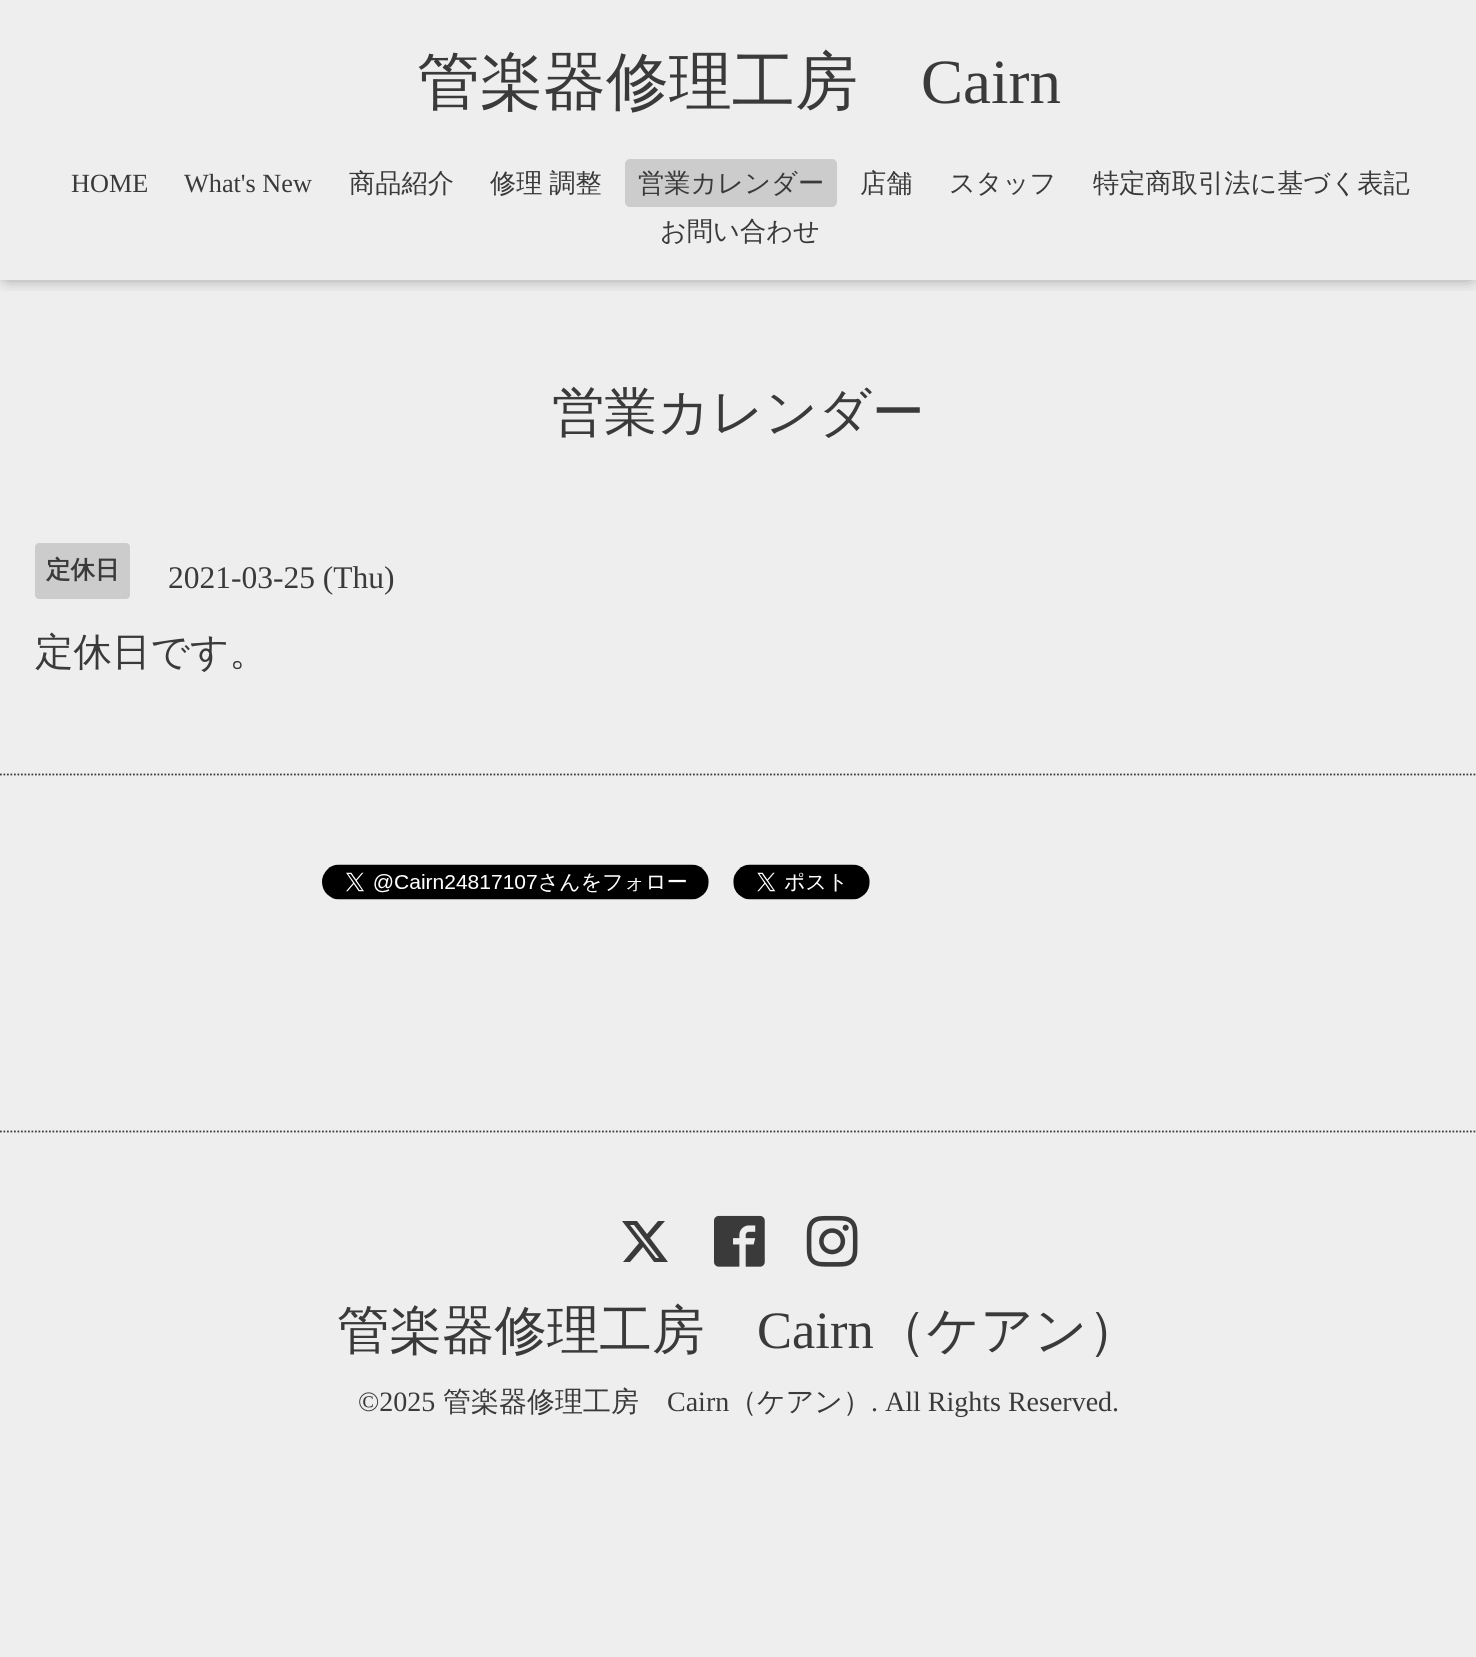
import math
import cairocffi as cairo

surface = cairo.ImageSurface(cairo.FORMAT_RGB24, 1476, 1657)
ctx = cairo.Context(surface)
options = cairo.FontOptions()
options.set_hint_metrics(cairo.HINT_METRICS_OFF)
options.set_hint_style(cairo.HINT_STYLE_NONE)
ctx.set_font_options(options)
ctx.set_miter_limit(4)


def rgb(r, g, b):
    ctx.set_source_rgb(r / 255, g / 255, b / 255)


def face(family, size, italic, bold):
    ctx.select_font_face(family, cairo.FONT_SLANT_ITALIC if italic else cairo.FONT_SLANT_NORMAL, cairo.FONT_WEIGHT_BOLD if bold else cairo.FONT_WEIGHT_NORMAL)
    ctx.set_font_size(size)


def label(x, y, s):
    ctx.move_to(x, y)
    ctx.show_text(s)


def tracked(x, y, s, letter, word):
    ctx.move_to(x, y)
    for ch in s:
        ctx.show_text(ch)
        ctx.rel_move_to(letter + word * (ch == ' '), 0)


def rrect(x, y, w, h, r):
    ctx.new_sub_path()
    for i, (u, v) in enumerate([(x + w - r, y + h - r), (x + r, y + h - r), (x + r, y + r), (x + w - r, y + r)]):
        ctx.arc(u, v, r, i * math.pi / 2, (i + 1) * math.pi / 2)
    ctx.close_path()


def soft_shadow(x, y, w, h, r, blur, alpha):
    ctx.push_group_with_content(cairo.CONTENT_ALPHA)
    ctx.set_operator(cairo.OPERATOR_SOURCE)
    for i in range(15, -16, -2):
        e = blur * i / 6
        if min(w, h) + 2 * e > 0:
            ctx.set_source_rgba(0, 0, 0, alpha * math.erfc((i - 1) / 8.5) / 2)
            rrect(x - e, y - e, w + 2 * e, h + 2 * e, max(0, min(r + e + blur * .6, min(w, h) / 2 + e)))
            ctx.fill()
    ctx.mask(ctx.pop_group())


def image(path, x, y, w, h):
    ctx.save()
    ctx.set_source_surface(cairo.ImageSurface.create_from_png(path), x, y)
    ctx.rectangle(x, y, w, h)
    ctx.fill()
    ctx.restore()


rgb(238, 238, 238)
ctx.paint()
ctx.save()
ctx.rectangle(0, 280, 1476, 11)
ctx.clip()
rgb(0, 0, 0)
soft_shadow(7, 9, 1463, 266, 0, 9, 0.6)
ctx.restore()
face('WenQuanYi Zen Hei Medium', 63, 0, 0)
rgb(58, 58, 58)
label(417, 103, '管楽器修理工房')
face('Liberation Serif', 63, 0, 0)
label(921, 103, 'Cairn')
face('Liberation Serif', 26.25, 0, 0)
label(71, 192, 'HOME')
label(184, 192, 'What\'s New')
face('WenQuanYi Zen Hei Medium', 26.25, 0, 0)
label(349, 192, '商品紹介')
tracked(490, 192, '修理 調整', 0, -1)
rgb(204, 204, 204)
rrect(625, 159, 212, 48, 5)
ctx.fill()
rgb(58, 58, 58)
label(638, 192, '営業カレンダー')
label(860, 192, '店舗')
label(949, 192, 'スタッフ')
label(1093, 192, '特定商取引法に基づく表記')
label(660, 240, 'お問い合わせ')
face('WenQuanYi Zen Hei Medium', 52.5, 0, 0)
label(552, 430, '営業カレンダー')
rgb(204, 204, 204)
rrect(35, 543, 95, 56, 4)
ctx.fill()
face('WenQuanYi Zen Hei', 24.5, 0, 1)
rgb(58, 58, 58)
label(46, 578, '定休日')
face('Liberation Serif', 31.5, 0, 0)
label(168, 588, '2021-03-25 (Thu)')
face('WenQuanYi Zen Hei Medium', 38.5, 0, 0)
label(35, 665, '定休日です。')
ctx.new_path()
ctx.move_to(0, 774.5)
ctx.line_to(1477, 774.5)
ctx.set_line_width(1.8)
ctx.set_dash([1.75, 1.75])
ctx.stroke()
image('image0.png', 322, 864, 387, 36)
image('image1.png', 733, 864, 137, 36)
ctx.new_path()
ctx.move_to(0, 1131.5)
ctx.line_to(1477, 1131.5)
ctx.stroke()
ctx.new_path()
ctx.move_to(658, 1221)
ctx.line_to(665, 1221)
ctx.line_to(650, 1238)
ctx.line_to(668, 1262)
ctx.line_to(654, 1262)
ctx.line_to(643, 1247)
ctx.line_to(630, 1262)
ctx.line_to(623, 1262)
ctx.line_to(639, 1243)
ctx.line_to(622, 1221)
ctx.line_to(637, 1221)
ctx.line_to(647, 1234)
ctx.close_path()
ctx.move_to(656, 1258)
ctx.line_to(659, 1258)
ctx.line_to(634, 1225)
ctx.line_to(630, 1225)
ctx.close_path()
ctx.fill()
image('image2.png', 714, 1215, 51, 52)
image('image3.png', 806, 1215, 52, 52)
face('WenQuanYi Zen Hei Medium', 52.5, 0, 0)
label(337, 1348, '管楽器修理工房')
face('Liberation Serif', 52.5, 0, 0)
label(757, 1348, 'Cairn')
face('WenQuanYi Zen Hei Medium', 52.5, 0, 0)
label(874, 1348, '（ケアン）')
face('Liberation Serif', 28, 0, 0)
label(358, 1411, '©2025')
face('WenQuanYi Zen Hei Medium', 28, 0, 0)
label(443, 1411, '管楽器修理工房')
face('Liberation Serif', 28, 0, 0)
label(667, 1411, 'Cairn')
face('WenQuanYi Zen Hei Medium', 28, 0, 0)
label(729, 1411, '（ケアン）')
face('Liberation Serif', 28, 0, 0)
label(871, 1411, '. All Rights Reserved.')
surface.write_to_png('render.png')
